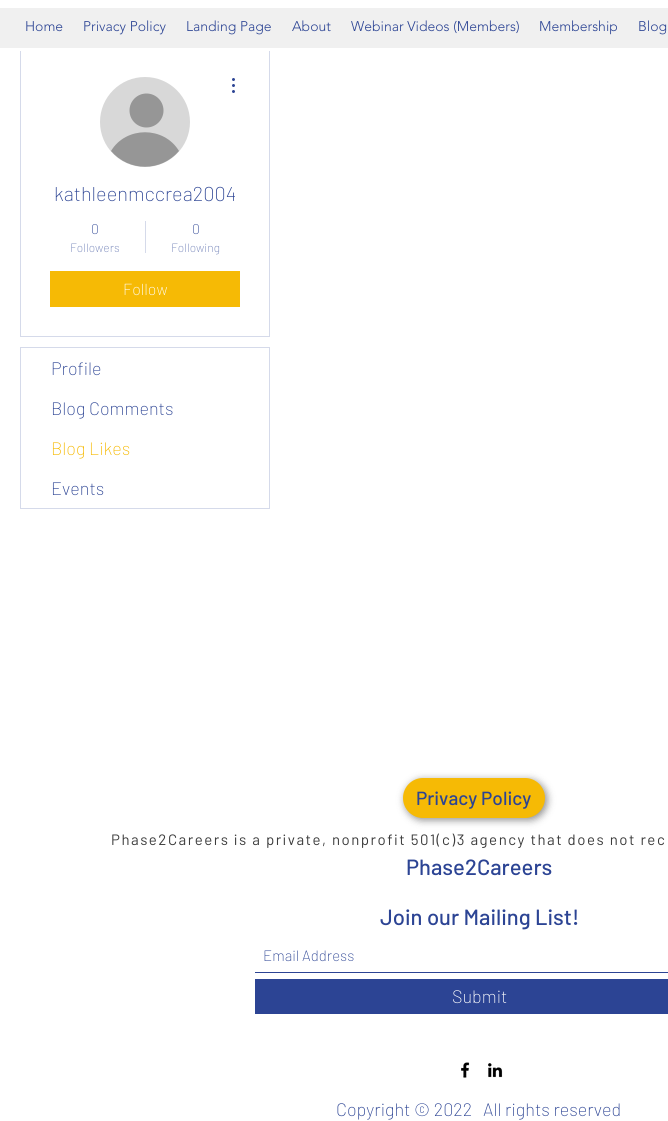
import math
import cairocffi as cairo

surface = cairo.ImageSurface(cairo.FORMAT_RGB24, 668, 1121)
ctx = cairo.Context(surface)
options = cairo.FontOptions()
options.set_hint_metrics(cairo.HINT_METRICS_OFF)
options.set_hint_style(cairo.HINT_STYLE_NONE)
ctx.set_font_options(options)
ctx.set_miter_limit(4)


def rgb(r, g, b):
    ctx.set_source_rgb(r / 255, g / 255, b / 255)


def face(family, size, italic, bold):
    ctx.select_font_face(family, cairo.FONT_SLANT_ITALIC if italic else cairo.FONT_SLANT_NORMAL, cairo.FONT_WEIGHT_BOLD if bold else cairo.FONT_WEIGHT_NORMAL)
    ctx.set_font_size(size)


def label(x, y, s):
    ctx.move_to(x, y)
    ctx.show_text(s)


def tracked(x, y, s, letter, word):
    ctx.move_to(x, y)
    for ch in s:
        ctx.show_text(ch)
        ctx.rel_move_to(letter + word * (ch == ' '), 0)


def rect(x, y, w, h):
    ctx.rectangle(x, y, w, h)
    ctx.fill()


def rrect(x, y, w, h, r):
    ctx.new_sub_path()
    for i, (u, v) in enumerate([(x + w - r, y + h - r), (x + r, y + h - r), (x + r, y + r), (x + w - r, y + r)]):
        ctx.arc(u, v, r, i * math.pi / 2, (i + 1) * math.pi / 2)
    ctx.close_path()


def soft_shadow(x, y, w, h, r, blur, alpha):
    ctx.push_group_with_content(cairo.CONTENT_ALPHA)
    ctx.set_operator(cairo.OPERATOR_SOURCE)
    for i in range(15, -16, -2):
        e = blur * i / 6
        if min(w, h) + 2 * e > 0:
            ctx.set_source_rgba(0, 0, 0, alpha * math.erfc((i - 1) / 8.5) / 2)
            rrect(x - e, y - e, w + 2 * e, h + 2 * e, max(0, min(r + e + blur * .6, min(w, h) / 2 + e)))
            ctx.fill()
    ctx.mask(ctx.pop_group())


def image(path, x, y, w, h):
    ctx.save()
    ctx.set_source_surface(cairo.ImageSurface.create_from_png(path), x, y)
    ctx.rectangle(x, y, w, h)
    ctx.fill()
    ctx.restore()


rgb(255, 255, 255)
ctx.paint()
ctx.rectangle(20.5, 47.5, 249, 289)
rgb(213, 218, 234)
ctx.set_line_width(1)
ctx.stroke()
rgb(255, 255, 255)
rect(20, 47, 250, 4)
rgb(240, 240, 240)
rect(0, 8, 668, 40)
face('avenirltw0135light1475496 Light', 14, 0, 0)
rgb(44, 68, 148)
label(25, 31, 'Home')
label(83, 31, 'Privacy Policy')
label(186, 31, 'Landing Page')
label(292, 31, 'About')
label(351, 31, 'Webinar Videos (Members)')
label(539, 31, 'Membership')
label(638, 31, 'Blog')
rgb(216, 216, 216)
ctx.new_path()
ctx.arc(145, 122, 45, 0, 2 * math.pi)
ctx.fill()
rgb(150, 150, 150)
ctx.arc(146.5, 110.5, 17, 0, 2 * math.pi)
ctx.fill()
ctx.new_path()
ctx.move_to(179, 151)
ctx.curve_to(161, 172, 129, 172, 111, 151)
ctx.curve_to(126, 126, 164, 126, 179, 151)
ctx.close_path()
ctx.fill()
image('image0.png', 232, 78, 3, 15)
face('Barlow ExtraLight', 20, 0, 0)
rgb(44, 68, 148)
label(54, 201, 'kathleenmccrea2004')
face('Barlow ExtraLight', 14, 0, 0)
label(91, 234, '0')
face('Barlow ExtraLight', 12, 0, 0)
rgb(107, 124, 180)
label(70, 252, 'Followers')
rgb(213, 218, 234)
rect(145, 221, 1, 32)
face('Barlow ExtraLight', 14, 0, 0)
rgb(44, 68, 148)
label(192, 234, '0')
face('Barlow ExtraLight', 12, 0, 0)
rgb(107, 124, 180)
label(171, 252, 'Following')
rgb(246, 186, 5)
rect(50, 271, 190, 36)
face('Barlow ExtraLight', 16, 0, 0)
rgb(255, 255, 255)
label(123, 295, 'Follow')
ctx.rectangle(20.5, 347.5, 249, 161)
rgb(213, 218, 234)
ctx.stroke()
face('Barlow ExtraLight', 18, 0, 0)
rgb(44, 68, 148)
label(51, 375, 'Profile')
label(51, 415, 'Blog Comments')
rgb(246, 186, 5)
label(51, 455, 'Blog Likes')
rgb(44, 68, 148)
label(51, 495, 'Events')
rgb(0, 0, 0)
soft_shadow(405, 780, 142, 40, 20, 4, 0.45)
rgb(246, 186, 5)
rrect(403, 778, 142, 40, 20)
ctx.fill()
face('Barlow Medium', 19, 0, 0)
rgb(44, 68, 148)
label(416, 805, 'Privacy Policy')
face('Barlow', 15, 0, 0)
rgb(60, 60, 60)
tracked(111, 845, 'Phase2Careers is a private, nonprofit 501(c)3 agency that does not rec', 1.5, 0)
face('Barlow Medium', 22, 0, 0)
rgb(44, 68, 148)
label(406, 875, 'Phase2Careers')
label(380, 925, 'Join our Mailing List!')
rect(255, 972, 413, 1)
face('Barlow ExtraLight', 15, 0, 0)
label(263, 961, 'Email Address')
rect(255, 979, 413, 35)
face('Barlow ExtraLight', 18, 0, 0)
rgb(255, 255, 255)
label(452, 1003, 'Submit')
image('image1.png', 461, 1062, 9, 16)
image('image2.png', 488, 1063, 15, 15)
rgb(44, 68, 148)
label(336, 1116, 'Copyright © 2022   All rights reserved')
surface.write_to_png('render.png')
